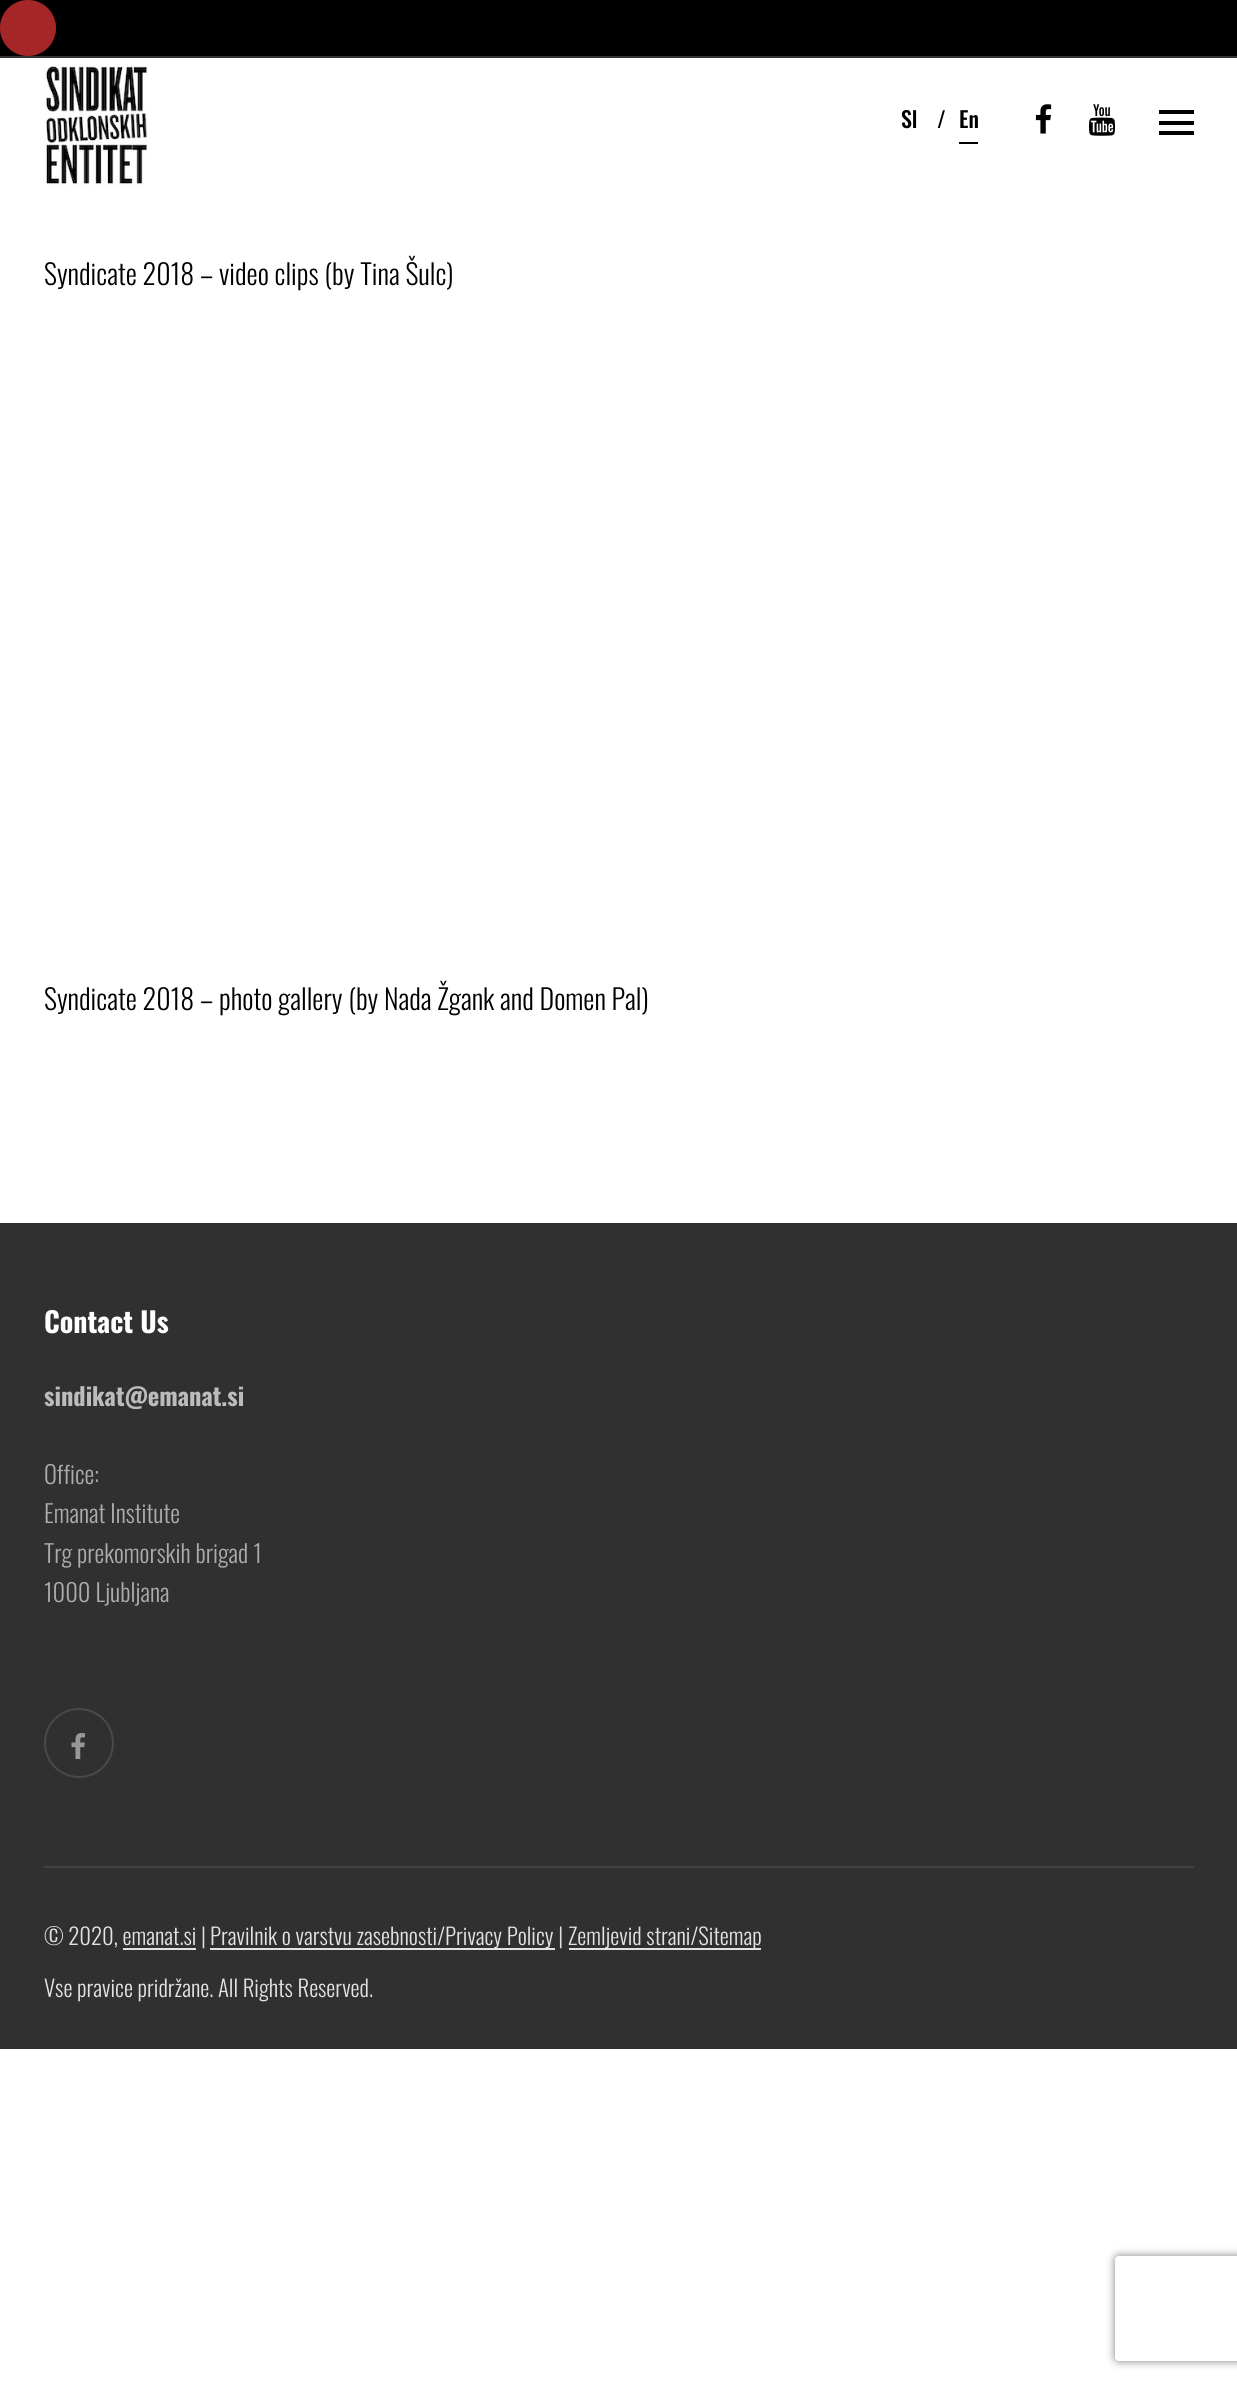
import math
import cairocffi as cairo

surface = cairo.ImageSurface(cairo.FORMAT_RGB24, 1237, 2385)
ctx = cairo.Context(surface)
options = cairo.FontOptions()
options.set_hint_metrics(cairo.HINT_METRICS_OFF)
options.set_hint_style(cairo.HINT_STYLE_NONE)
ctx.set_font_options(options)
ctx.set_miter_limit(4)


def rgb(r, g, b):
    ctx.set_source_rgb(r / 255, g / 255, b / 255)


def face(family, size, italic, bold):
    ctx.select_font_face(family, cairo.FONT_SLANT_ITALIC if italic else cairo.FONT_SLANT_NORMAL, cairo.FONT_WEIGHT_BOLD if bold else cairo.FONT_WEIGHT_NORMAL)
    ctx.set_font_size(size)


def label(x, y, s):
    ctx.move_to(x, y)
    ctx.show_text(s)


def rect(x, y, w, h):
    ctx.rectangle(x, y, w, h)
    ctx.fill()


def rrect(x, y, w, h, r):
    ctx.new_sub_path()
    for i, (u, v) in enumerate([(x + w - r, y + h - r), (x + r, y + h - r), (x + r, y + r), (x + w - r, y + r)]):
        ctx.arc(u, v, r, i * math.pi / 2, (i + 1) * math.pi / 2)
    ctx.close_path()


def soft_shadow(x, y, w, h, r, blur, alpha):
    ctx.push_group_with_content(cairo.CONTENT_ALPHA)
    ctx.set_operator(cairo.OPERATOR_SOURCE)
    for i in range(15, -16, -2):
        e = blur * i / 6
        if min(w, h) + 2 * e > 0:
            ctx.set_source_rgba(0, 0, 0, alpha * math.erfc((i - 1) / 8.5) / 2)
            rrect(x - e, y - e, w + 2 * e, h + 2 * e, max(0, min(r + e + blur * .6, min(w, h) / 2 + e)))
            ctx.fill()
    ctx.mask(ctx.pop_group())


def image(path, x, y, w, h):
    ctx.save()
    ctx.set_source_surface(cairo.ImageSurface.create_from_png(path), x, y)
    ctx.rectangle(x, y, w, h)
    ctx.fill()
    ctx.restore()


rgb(255, 255, 255)
ctx.paint()
rgb(0, 0, 0)
rect(0, 0, 1237, 56)
rgb(111, 26, 26)
ctx.arc(28, 28, 28, 0, 2 * math.pi)
ctx.fill()
ctx.set_source_rgba(0.867, 0.2, 0.2, 0.5)
ctx.arc(28, 28, 28, 0, 2 * math.pi)
ctx.fill()
rgb(51, 51, 51)
rect(0, 56, 1237, 2)
image('image0.png', 44, 65, 104, 121)
face('Oswald Medium', 22, 0, 0)
rgb(0, 0, 0)
label(901, 128, 'Sl')
label(937, 128, '/')
label(959, 128, 'En')
rect(959, 142, 19, 2)
image('image1.png', 1035, 104, 17, 30)
image('image2.png', 1089, 104, 26, 32)
rect(1159, 110, 35, 4)
rect(1159, 131, 35, 4)
rect(1159, 121, 35, 4)
face('Oswald Light', 28, 0, 0)
label(44, 285, 'Syndicate 2018 – video clips (by Tina Šulc)')
label(44, 1010, 'Syndicate 2018 – photo gallery (by Nada Žgank and Domen Pal)')
rgb(48, 48, 48)
rect(0, 1223, 1237, 826)
face('Oswald', 28, 0, 1)
rgb(255, 255, 255)
label(44, 1333, 'Contact Us')
face('Oswald', 24.5, 0, 1)
rgb(188, 188, 188)
label(44, 1406, 'sindikat@emanat.si')
face('Oswald Light', 24.5, 0, 0)
rgb(172, 172, 172)
label(44, 1484, 'Office:')
label(44, 1523, 'Emanat Institute')
label(44, 1563, 'Trg prekomorskih brigad 1')
label(44, 1602, '1000 Ljubljana')
ctx.new_path()
ctx.arc(79, 1743, 34, 0, 2 * math.pi)
rgb(73, 73, 73)
ctx.stroke()
image('image3.png', 71, 1733, 14, 26)
rgb(66, 66, 66)
rect(44, 1866, 1150, 2)
face('Oswald Light', 22.75, 0, 0)
rgb(226, 226, 226)
label(44, 1945, '© 2020, emanat.si |')
rect(210, 1948, 345, 2)
label(210, 1945, 'Pravilnik o varstvu zasebnosti/Privacy Policy |')
rect(569, 1948, 192, 2)
label(568, 1945, 'Zemljevid strani/Sitemap')
rect(123, 1948, 73, 2)
label(44, 1997, 'Vse pravice pridržane. All Rights Reserved.')
ctx.save()
ctx.set_fill_rule(cairo.FILL_RULE_EVEN_ODD)
ctx.new_path()
ctx.move_to(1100, 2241)
ctx.line_to(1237, 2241)
ctx.line_to(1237, 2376)
ctx.line_to(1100, 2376)
ctx.close_path()
ctx.move_to(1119, 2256)
ctx.line_to(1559, 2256)
ctx.curve_to(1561, 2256, 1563, 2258, 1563, 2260)
ctx.line_to(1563, 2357)
ctx.curve_to(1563, 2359, 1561, 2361, 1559, 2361)
ctx.line_to(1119, 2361)
ctx.curve_to(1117, 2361, 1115, 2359, 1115, 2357)
ctx.line_to(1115, 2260)
ctx.curve_to(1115, 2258, 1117, 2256, 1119, 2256)
ctx.close_path()
ctx.clip()
rgb(128, 128, 128)
soft_shadow(1115, 2256, 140, 105, 4, 4.5, 1)
ctx.restore()
surface.write_to_png('render.png')
